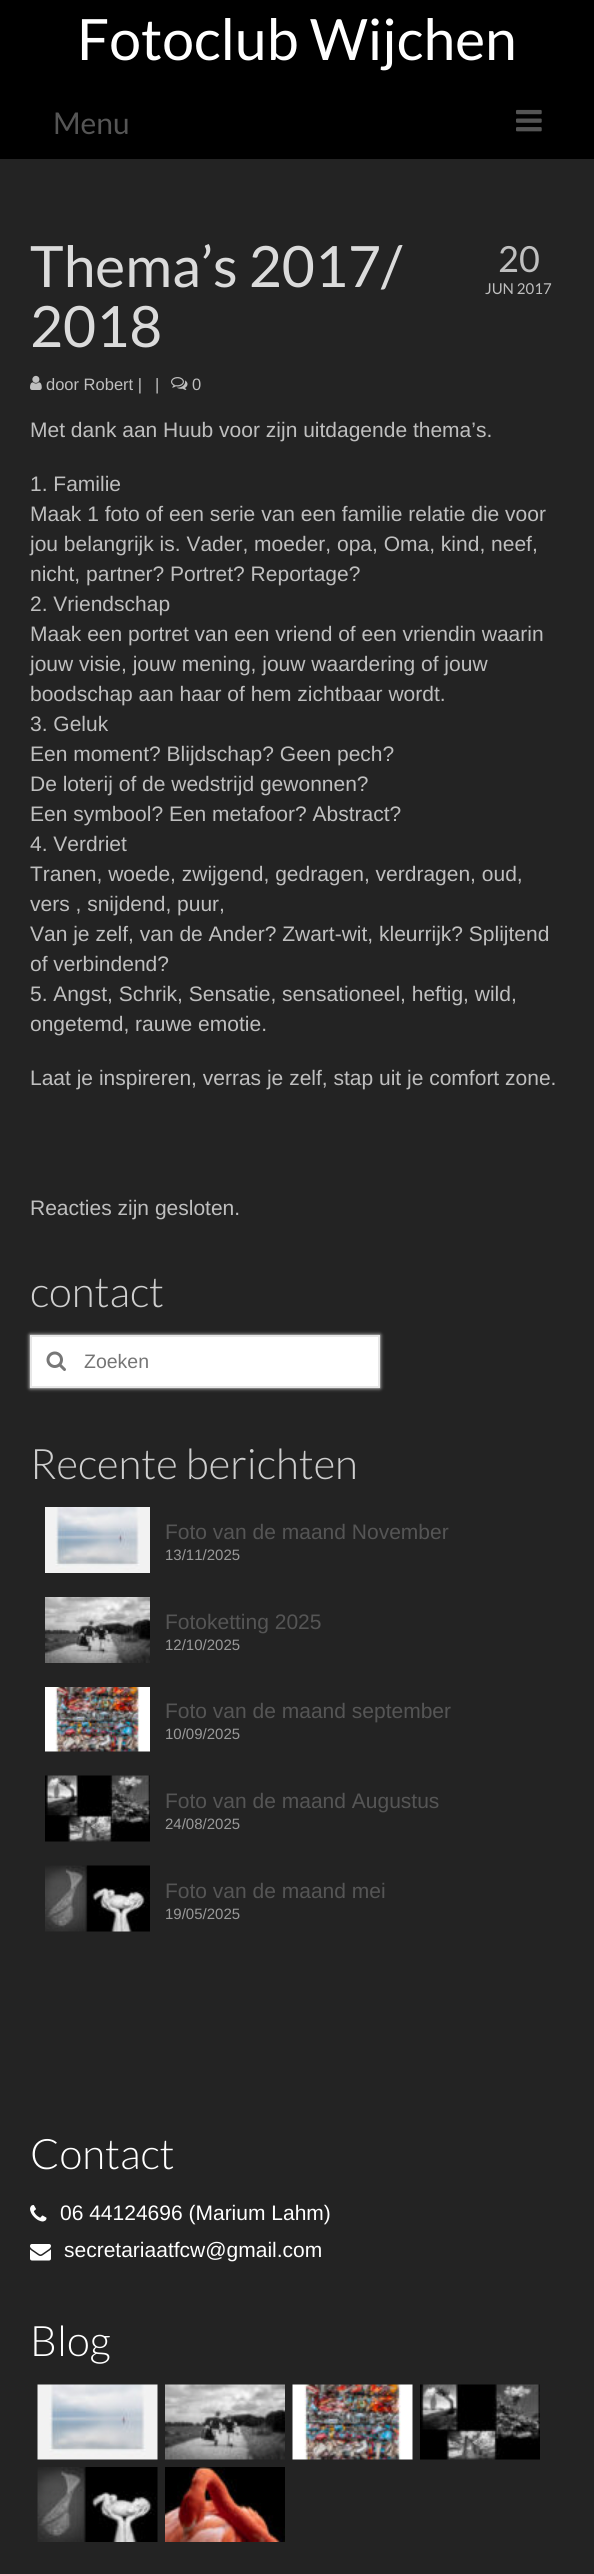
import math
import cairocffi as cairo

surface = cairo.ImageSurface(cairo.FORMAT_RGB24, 594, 2574)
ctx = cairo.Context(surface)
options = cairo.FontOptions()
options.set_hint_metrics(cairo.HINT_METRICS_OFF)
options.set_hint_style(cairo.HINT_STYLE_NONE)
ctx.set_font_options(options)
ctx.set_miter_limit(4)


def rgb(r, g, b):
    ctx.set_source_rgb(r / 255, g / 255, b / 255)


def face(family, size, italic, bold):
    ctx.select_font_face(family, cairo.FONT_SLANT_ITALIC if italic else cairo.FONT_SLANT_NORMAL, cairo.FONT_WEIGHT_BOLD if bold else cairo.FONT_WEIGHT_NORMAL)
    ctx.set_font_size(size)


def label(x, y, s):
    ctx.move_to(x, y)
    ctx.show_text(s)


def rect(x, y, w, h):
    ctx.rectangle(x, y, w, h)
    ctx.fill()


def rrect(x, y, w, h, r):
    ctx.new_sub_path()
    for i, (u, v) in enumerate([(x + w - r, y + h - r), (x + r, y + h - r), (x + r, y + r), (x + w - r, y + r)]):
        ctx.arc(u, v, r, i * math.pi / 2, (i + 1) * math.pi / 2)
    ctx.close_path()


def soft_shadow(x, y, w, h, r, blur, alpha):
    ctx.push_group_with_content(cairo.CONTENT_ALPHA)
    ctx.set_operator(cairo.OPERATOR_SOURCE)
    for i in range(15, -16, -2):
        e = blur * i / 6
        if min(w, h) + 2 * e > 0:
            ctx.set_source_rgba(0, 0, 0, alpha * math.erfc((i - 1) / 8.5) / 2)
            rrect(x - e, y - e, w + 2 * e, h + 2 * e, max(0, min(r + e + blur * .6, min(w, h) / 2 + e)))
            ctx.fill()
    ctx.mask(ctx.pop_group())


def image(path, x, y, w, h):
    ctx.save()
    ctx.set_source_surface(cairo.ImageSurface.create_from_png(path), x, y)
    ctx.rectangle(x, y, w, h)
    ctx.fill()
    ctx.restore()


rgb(0, 0, 0)
ctx.paint()
face('Lato', 57, 0, 0)
rgb(255, 255, 255)
label(77, 60, 'Fotoclub Wijchen')
face('Lato', 30, 0, 0)
rgb(85, 85, 85)
label(53, 134, 'Menu')
image('image0.png', 516, 109, 26, 23)
rgb(35, 35, 35)
rect(0, 159, 594, 2415)
face('Lato', 57, 0, 0)
rgb(219, 219, 219)
label(30, 287, 'Thema’s 2017/')
label(30, 347, '2018')
image('image1.png', 30, 375, 12, 15)
face('Liberation Sans', 16.5, 0, 0)
rgb(191, 191, 191)
label(46, 390, 'door Robert |')
label(155, 390, '|')
image('image2.png', 171, 377, 17, 13)
label(192, 390, '0')
face('Lato', 36, 0, 0)
label(498, 272, '20')
face('Lato', 15, 0, 0)
label(485, 294, 'JUN 2017')
face('Liberation Sans', 21, 0, 0)
label(30, 437, 'Met dank aan Huub voor zijn uitdagende thema’s.')
label(30, 491, '1. Familie')
label(30, 521, 'Maak 1 foto of een serie van een familie relatie die voor')
label(30, 551, 'jou belangrijk is. Vader, moeder, opa, Oma, kind, neef,')
label(30, 581, 'nicht, partner? Portret? Reportage?')
label(30, 611, '2. Vriendschap')
label(30, 641, 'Maak een portret van een vriend of een vriendin waarin')
label(30, 671, 'jouw visie, jouw mening, jouw waardering of jouw')
label(30, 701, 'boodschap aan haar of hem zichtbaar wordt.')
label(30, 731, '3. Geluk')
label(30, 761, 'Een moment? Blijdschap? Geen pech?')
label(30, 791, 'De loterij of de wedstrijd gewonnen?')
label(30, 821, 'Een symbool? Een metafoor? Abstract?')
label(30, 851, '4. Verdriet')
label(30, 881, 'Tranen, woede, zwijgend, gedragen, verdragen, oud,')
label(30, 911, 'vers , snijdend, puur,')
label(30, 941, 'Van je zelf, van de Ander? Zwart-wit, kleurrijk? Splijtend')
label(30, 971, 'of verbindend?')
label(30, 1001, '5. Angst, Schrik, Sensatie, sensationeel, heftig, wild,')
label(30, 1031, 'ongetemd, rauwe emotie.')
label(30, 1085, 'Laat je inspireren, verras je zelf, stap uit je comfort zone.')
label(30, 1215, 'Reacties zijn gesloten.')
face('Lato Light', 42, 0, 0)
rgb(206, 206, 206)
label(30, 1307, 'contact')
rgb(255, 255, 255)
soft_shadow(30, 1335, 350, 53, 0, 2, 1)
rgb(255, 255, 255)
ctx.rectangle(31, 1336, 348, 51)
ctx.fill_preserve()
rgb(231, 231, 231)
ctx.stroke()
image('image3.png', 46, 1351, 20, 20)
face('Liberation Sans', 19.5, 0, 0)
rgb(117, 117, 117)
label(84, 1368, 'Zoeken')
face('Lato Light', 42, 0, 0)
rgb(206, 206, 206)
label(30, 1479, 'Recente berichten')
image('image4.png', 45, 1507, 105, 66)
face('Liberation Sans', 21, 0, 0)
rgb(85, 85, 85)
label(165, 1539, 'Foto van de maand November')
face('Liberation Sans', 15, 0, 0)
rgb(153, 153, 153)
label(165, 1560, '13/11/2025')
image('image5.png', 45, 1597, 105, 66)
face('Liberation Sans', 21, 0, 0)
rgb(85, 85, 85)
label(165, 1629, 'Fotoketting 2025')
face('Liberation Sans', 15, 0, 0)
rgb(153, 153, 153)
label(165, 1650, '12/10/2025')
image('image6.png', 45, 1687, 105, 65)
face('Liberation Sans', 21, 0, 0)
rgb(85, 85, 85)
label(165, 1718, 'Foto van de maand september')
face('Liberation Sans', 15, 0, 0)
rgb(153, 153, 153)
label(165, 1739, '10/09/2025')
image('image7.png', 45, 1775, 105, 67)
face('Liberation Sans', 21, 0, 0)
rgb(85, 85, 85)
label(165, 1808, 'Foto van de maand Augustus')
face('Liberation Sans', 15, 0, 0)
rgb(153, 153, 153)
label(165, 1829, '24/08/2025')
image('image8.png', 45, 1865, 105, 67)
face('Liberation Sans', 21, 0, 0)
rgb(85, 85, 85)
label(165, 1898, 'Foto van de maand mei')
face('Liberation Sans', 15, 0, 0)
rgb(153, 153, 153)
label(165, 1919, '19/05/2025')
face('Lato Light', 42, 0, 0)
rgb(255, 255, 255)
label(30, 2169, 'Contact')
image('image9.png', 30, 2205, 17, 17)
face('Liberation Sans', 21, 0, 0)
label(60, 2220, '06 44124696 (Marium Lahm)')
image('image10.png', 30, 2244, 21, 17)
label(64, 2257, 'secretariaatfcw@gmail.com')
face('Lato Light', 42, 0, 0)
label(30, 2356, 'Blog')
image('image11.png', 37, 2384, 121, 76)
image('image12.png', 165, 2384, 120, 76)
image('image13.png', 292, 2384, 121, 76)
image('image14.png', 420, 2384, 120, 76)
image('image15.png', 37, 2467, 121, 75)
image('image16.png', 165, 2467, 120, 75)
surface.write_to_png('render.png')
